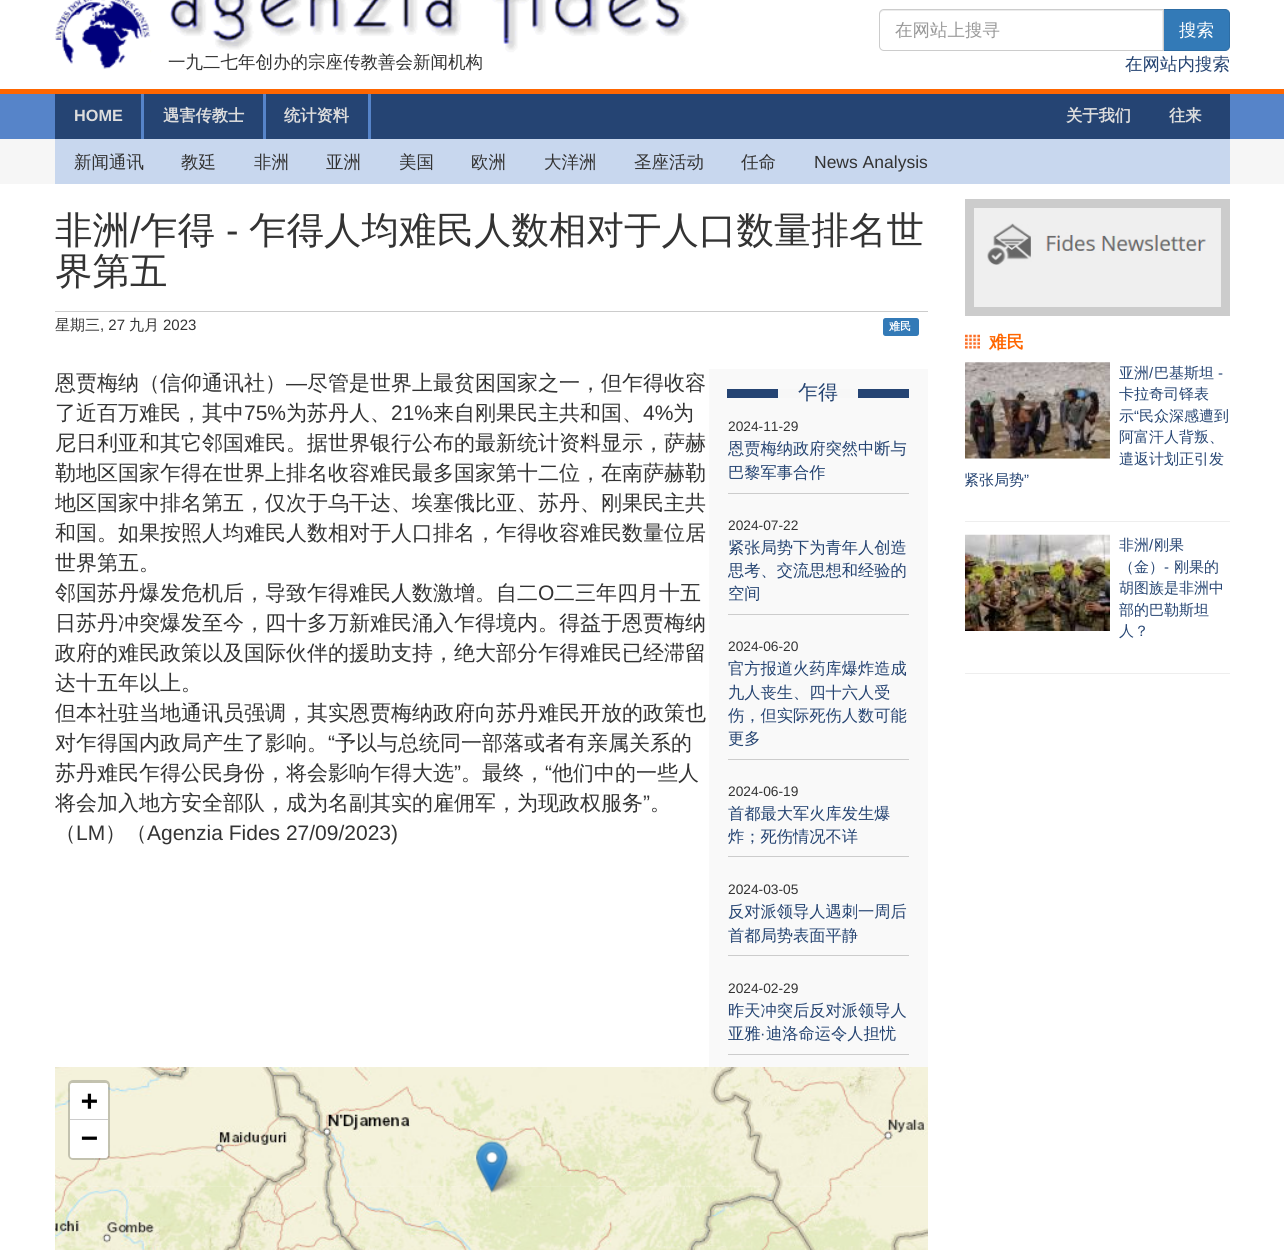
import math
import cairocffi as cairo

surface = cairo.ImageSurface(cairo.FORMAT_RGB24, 1284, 1250)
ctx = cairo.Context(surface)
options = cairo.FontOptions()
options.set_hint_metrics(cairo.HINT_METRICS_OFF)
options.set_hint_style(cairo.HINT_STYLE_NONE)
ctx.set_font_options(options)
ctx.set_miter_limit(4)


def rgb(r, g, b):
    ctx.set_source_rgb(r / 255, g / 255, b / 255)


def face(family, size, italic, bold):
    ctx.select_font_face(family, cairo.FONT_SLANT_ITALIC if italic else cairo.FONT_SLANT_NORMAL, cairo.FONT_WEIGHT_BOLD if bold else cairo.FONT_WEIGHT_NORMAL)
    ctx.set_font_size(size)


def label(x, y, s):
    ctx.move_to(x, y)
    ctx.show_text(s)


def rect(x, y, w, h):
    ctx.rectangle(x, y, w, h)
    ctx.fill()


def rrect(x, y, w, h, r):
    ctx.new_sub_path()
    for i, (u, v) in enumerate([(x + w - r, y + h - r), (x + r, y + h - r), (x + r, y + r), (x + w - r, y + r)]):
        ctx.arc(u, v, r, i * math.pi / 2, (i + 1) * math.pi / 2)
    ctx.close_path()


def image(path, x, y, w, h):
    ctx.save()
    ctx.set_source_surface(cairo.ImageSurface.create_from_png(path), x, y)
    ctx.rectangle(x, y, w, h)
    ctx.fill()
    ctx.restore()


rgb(255, 255, 255)
ctx.paint()
rgb(255, 102, 0)
rect(0, 89, 1284, 5)
image('image0.png', 55, 0, 634, 69)
face('WenQuanYi Zen Hei Medium', 17.5, 0, 0)
rgb(51, 51, 51)
label(168, 68, '一九二七年创办的宗座传教善会新闻机构')
rgb(51, 122, 183)
ctx.new_path()
ctx.move_to(1163.5, 9.5)
ctx.line_to(1225, 9.5)
ctx.curve_to(1227.5, 9.5, 1229.5, 11.5, 1229.5, 14)
ctx.line_to(1229.5, 46)
ctx.curve_to(1229.5, 48.5, 1227.5, 50.5, 1225, 50.5)
ctx.line_to(1163.5, 50.5)
ctx.close_path()
ctx.fill_preserve()
rgb(46, 109, 164)
ctx.set_line_width(1)
ctx.stroke()
rgb(255, 255, 255)
ctx.new_path()
ctx.move_to(884, 9)
ctx.line_to(1164, 9)
ctx.line_to(1164, 51)
ctx.line_to(884, 51)
ctx.curve_to(881, 51, 879, 49, 879, 46)
ctx.line_to(879, 14)
ctx.curve_to(879, 11, 881, 9, 884, 9)
ctx.close_path()
ctx.fill()
rgb(236, 236, 236)
ctx.new_path()
ctx.move_to(884, 11)
ctx.line_to(1162, 11)
ctx.line_to(1162, 50)
ctx.line_to(1163, 50)
ctx.line_to(1163, 10)
ctx.line_to(884, 10)
ctx.curve_to(881, 10, 880, 12, 880, 15)
ctx.curve_to(880, 13, 882, 11, 884, 11)
ctx.close_path()
ctx.fill()
ctx.new_path()
ctx.move_to(884, 9.5)
ctx.line_to(1163.5, 9.5)
ctx.line_to(1163.5, 50.5)
ctx.line_to(884, 50.5)
ctx.curve_to(881.5, 50.5, 879.5, 48.5, 879.5, 46)
ctx.line_to(879.5, 14)
ctx.curve_to(879.5, 11.5, 881.5, 9.5, 884, 9.5)
ctx.close_path()
rgb(204, 204, 204)
ctx.stroke()
rgb(153, 153, 153)
label(895, 36, '在网站上搜寻')
rgb(255, 255, 255)
label(1179, 36, '搜索')
rgb(37, 68, 114)
label(1125, 70, '在网站内搜索')
rgb(246, 246, 246)
rect(0, 139, 1284, 45)
rgb(86, 132, 201)
rect(0, 94, 1284, 45)
rgb(37, 68, 115)
rect(55, 94, 1175, 45)
rgb(86, 132, 201)
rect(141, 94, 3, 45)
face('Liberation Sans', 16.25, 0, 1)
rgb(221, 221, 221)
label(74, 121, 'HOME')
rgb(86, 132, 201)
rect(263, 94, 3, 45)
face('WenQuanYi Zen Hei', 16.25, 0, 1)
rgb(221, 221, 221)
label(163, 121, '遇害传教士')
rgb(86, 132, 201)
rect(368, 94, 3, 45)
rgb(221, 221, 221)
label(284, 121, '统计资料')
label(1066, 121, '关于我们')
label(1169, 121, '往来')
rgb(200, 215, 238)
rect(55, 139, 1175, 45)
face('WenQuanYi Zen Hei Medium', 17.5, 0, 0)
rgb(51, 51, 51)
label(74, 168, '新闻通讯')
label(181, 168, '教廷')
label(254, 168, '非洲')
label(326, 168, '亚洲')
label(399, 168, '美国')
label(471, 168, '欧洲')
label(544, 168, '大洋洲')
label(634, 168, '圣座活动')
label(741, 168, '任命')
face('Liberation Sans', 17.5, 0, 0)
label(814, 168, 'News Analysis')
rgb(204, 204, 204)
rect(55, 311, 873, 1)
face('WenQuanYi Zen Hei Medium', 37.5, 0, 0)
rgb(51, 51, 51)
label(55, 243, '非洲')
face('Liberation Sans', 37.5, 0, 0)
label(130, 243, '/')
face('WenQuanYi Zen Hei Medium', 37.5, 0, 0)
label(140, 243, '乍得')
face('Liberation Sans', 37.5, 0, 0)
label(226, 243, '-')
face('WenQuanYi Zen Hei Medium', 37.5, 0, 0)
label(249, 243, '乍得人均难民人数相对于人口数量排名世')
label(55, 284, '界第五')
face('WenQuanYi Zen Hei Medium', 15, 0, 0)
label(55, 330, '星期三')
face('Liberation Sans', 15, 0, 0)
label(100, 330, ', 27')
face('WenQuanYi Zen Hei Medium', 15, 0, 0)
label(129, 330, '九月')
face('Liberation Sans', 15, 0, 0)
label(163, 330, '2023')
rgb(51, 122, 183)
rrect(883, 318, 36, 18, 2.5)
ctx.fill()
face('WenQuanYi Zen Hei', 11, 0, 1)
rgb(255, 255, 255)
label(889, 330, '难民')
face('WenQuanYi Zen Hei Medium', 21, 0, 0)
rgb(51, 51, 51)
label(55, 390, '恩贾梅纳（信仰通讯社）')
face('Liberation Sans', 21, 0, 0)
label(286, 390, '—')
face('WenQuanYi Zen Hei Medium', 21, 0, 0)
label(307, 390, '尽管是世界上最贫困国家之一，但乍得收容')
label(55, 420, '了近百万难民，其中')
face('Liberation Sans', 21, 0, 0)
label(244, 420, '75%')
face('WenQuanYi Zen Hei Medium', 21, 0, 0)
label(286, 420, '为苏丹人、')
face('Liberation Sans', 21, 0, 0)
label(391, 420, '21%')
face('WenQuanYi Zen Hei Medium', 21, 0, 0)
label(433, 420, '来自刚果民主共和国、')
face('Liberation Sans', 21, 0, 0)
label(643, 420, '4%')
face('WenQuanYi Zen Hei Medium', 21, 0, 0)
label(673, 420, '为')
label(55, 450, '尼日利亚和其它邻国难民。据世界银行公布的最新统计资料显示，萨赫')
label(55, 480, '勒地区国家乍得在世界上排名收容难民最多国家第十二位，在南萨赫勒')
label(55, 510, '地区国家中排名第五，仅次于乌干达、埃塞俄比亚、苏丹、刚果民主共')
label(55, 540, '和国。如果按照人均难民人数相对于人口排名，乍得收容难民数量位居')
label(55, 570, '世界第五。')
label(55, 600, '邻国苏丹爆发危机后，导致乍得难民人数激增。自二')
face('Liberation Sans', 21, 0, 0)
label(538, 600, 'O')
face('WenQuanYi Zen Hei Medium', 21, 0, 0)
label(554, 600, '二三年四月十五')
label(55, 630, '日苏丹冲突爆发至今，四十多万新难民涌入乍得境内。得益于恩贾梅纳')
label(55, 660, '政府的难民政策以及国际伙伴的援助支持，绝大部分乍得难民已经滞留')
label(55, 690, '达十五年以上。')
label(55, 720, '但本社驻当地通讯员强调，其实恩贾梅纳政府向苏丹难民开放的政策也')
label(55, 750, '对乍得国内政局产生了影响。')
face('Liberation Sans', 21, 0, 0)
label(328, 750, '“')
face('WenQuanYi Zen Hei Medium', 21, 0, 0)
label(335, 750, '予以与总统同一部落或者有亲属关系的')
label(55, 780, '苏丹难民乍得公民身份，将会影响乍得大选')
face('Liberation Sans', 21, 0, 0)
label(454, 780, '”')
face('WenQuanYi Zen Hei Medium', 21, 0, 0)
label(461, 780, '。最终，')
face('Liberation Sans', 21, 0, 0)
label(545, 780, '“')
face('WenQuanYi Zen Hei Medium', 21, 0, 0)
label(552, 780, '他们中的一些人')
label(55, 810, '将会加入地方安全部队，成为名副其实的雇佣军，为现政权服务')
face('Liberation Sans', 21, 0, 0)
label(643, 810, '”')
face('WenQuanYi Zen Hei Medium', 21, 0, 0)
label(650, 810, '。')
label(55, 840, '（')
face('Liberation Sans', 21, 0, 0)
label(76, 840, 'LM')
face('WenQuanYi Zen Hei Medium', 21, 0, 0)
label(105, 840, '）（')
face('Liberation Sans', 21, 0, 0)
label(147, 840, 'Agenzia Fides 27/09/2023)')
rgb(249, 249, 249)
rect(709, 369, 219, 698)
rgb(37, 68, 115)
rect(727, 389, 182, 9)
rgb(247, 247, 247)
rect(778, 389, 80, 9)
face('WenQuanYi Zen Hei Medium', 20, 0, 0)
rgb(37, 68, 114)
label(798, 399, '乍得')
rgb(204, 204, 204)
rect(728, 493, 181, 1)
face('Liberation Sans', 13.75, 0, 0)
rgb(51, 51, 51)
label(728, 431, '2024-11-29')
face('WenQuanYi Zen Hei Medium', 16.25, 0, 0)
rgb(37, 68, 114)
label(728, 454, '恩贾梅纳政府突然中断与')
label(728, 478, '巴黎军事合作')
rgb(204, 204, 204)
rect(728, 614, 181, 1)
face('Liberation Sans', 13.75, 0, 0)
rgb(51, 51, 51)
label(728, 530, '2024-07-22')
face('WenQuanYi Zen Hei Medium', 16.25, 0, 0)
rgb(37, 68, 114)
label(728, 553, '紧张局势下为青年人创造')
label(728, 576, '思考、交流思想和经验的')
label(728, 599, '空间')
rgb(204, 204, 204)
rect(728, 759, 181, 1)
face('Liberation Sans', 13.75, 0, 0)
rgb(51, 51, 51)
label(728, 651, '2024-06-20')
face('WenQuanYi Zen Hei Medium', 16.25, 0, 0)
rgb(37, 68, 114)
label(728, 674, '官方报道火药库爆炸造成')
label(728, 698, '九人丧生、四十六人受')
label(728, 721, '伤，但实际死伤人数可能')
label(728, 744, '更多')
rgb(204, 204, 204)
rect(728, 856, 181, 1)
face('Liberation Sans', 13.75, 0, 0)
rgb(51, 51, 51)
label(728, 796, '2024-06-19')
face('WenQuanYi Zen Hei Medium', 16.25, 0, 0)
rgb(37, 68, 114)
label(728, 819, '首都最大军火库发生爆')
label(728, 842, '炸；死伤情况不详')
rgb(204, 204, 204)
rect(728, 955, 181, 1)
face('Liberation Sans', 13.75, 0, 0)
rgb(51, 51, 51)
label(728, 894, '2024-03-05')
face('WenQuanYi Zen Hei Medium', 16.25, 0, 0)
rgb(37, 68, 114)
label(728, 917, '反对派领导人遇刺一周后')
label(728, 941, '首都局势表面平静')
rgb(204, 204, 204)
rect(728, 1054, 181, 1)
face('Liberation Sans', 13.75, 0, 0)
rgb(51, 51, 51)
label(728, 993, '2024-02-29')
face('WenQuanYi Zen Hei Medium', 16.25, 0, 0)
rgb(37, 68, 114)
label(728, 1016, '昨天冲突后反对派领导人')
label(728, 1039, '亚雅')
face('Liberation Sans', 16.25, 0, 0)
label(760, 1039, '·')
face('WenQuanYi Zen Hei Medium', 16.25, 0, 0)
label(766, 1039, '迪洛命运令人担忧')
image('image1.png', 55, 1067, 56, 119)
image('image2.png', 111, 1067, 320, 119)
image('image3.png', 431, 1067, 320, 119)
image('image4.png', 751, 1067, 177, 119)
image('image5.png', 55, 1186, 56, 64)
image('image6.png', 111, 1186, 320, 64)
image('image7.png', 431, 1186, 320, 64)
image('image8.png', 751, 1186, 177, 64)
image('image10.png', 487, 1157, 38, 36)
image('image9.png', 476, 1140, 33, 53)
rrect(69.5, 1081.5, 39, 77, 3.5)
ctx.set_source_rgba(0, 0, 0, 0.2)
ctx.set_line_width(3)
ctx.stroke()
rgb(255, 255, 255)
ctx.new_path()
ctx.move_to(72.5, 1083)
ctx.line_to(105.5, 1083)
ctx.curve_to(107, 1083, 108, 1084, 108, 1085.5)
ctx.line_to(108, 1120)
ctx.line_to(70, 1120)
ctx.line_to(70, 1085.5)
ctx.curve_to(70, 1084, 71, 1083, 72.5, 1083)
ctx.close_path()
ctx.fill()
rgb(204, 204, 204)
rect(70, 1119, 38, 1)
face('DejaVu Sans Mono', 28, 0, 1)
rgb(0, 0, 0)
label(81, 1110, '+')
rgb(255, 255, 255)
ctx.new_path()
ctx.move_to(70, 1120)
ctx.line_to(108, 1120)
ctx.line_to(108, 1155.5)
ctx.curve_to(108, 1157, 107, 1158, 105.5, 1158)
ctx.line_to(72.5, 1158)
ctx.curve_to(71, 1158, 70, 1157, 70, 1155.5)
ctx.close_path()
ctx.fill()
rgb(0, 0, 0)
label(81, 1147, '−')
rgb(239, 239, 239)
ctx.rectangle(969.5, 203.5, 256, 108)
ctx.fill_preserve()
rgb(204, 204, 204)
ctx.set_line_width(9)
ctx.stroke()
image('image11.png', 987, 223, 219, 42)
image('image12.png', 965, 334, 15, 15)
face('WenQuanYi Zen Hei', 17.5, 0, 1)
rgb(255, 102, 0)
label(989, 348, '难民')
image('image13.png', 965, 362, 145, 97)
face('WenQuanYi Zen Hei Medium', 15, 0, 0)
rgb(37, 68, 114)
label(1119, 378, '亚洲')
face('Liberation Sans', 15, 0, 0)
label(1149, 378, '/')
face('WenQuanYi Zen Hei Medium', 15, 0, 0)
label(1154, 378, '巴基斯坦')
face('Liberation Sans', 15, 0, 0)
label(1218, 378, '-')
face('WenQuanYi Zen Hei Medium', 15, 0, 0)
label(1119, 399, '卡拉奇司铎表')
label(1119, 421, '示')
face('Liberation Sans', 15, 0, 0)
label(1134, 421, '“')
face('WenQuanYi Zen Hei Medium', 15, 0, 0)
label(1139, 421, '民众深感遭到')
label(1119, 442, '阿富汗人背叛、')
label(1119, 464, '遣返计划正引发')
label(964, 485, '紧张局势')
face('Liberation Sans', 15, 0, 0)
label(1024, 485, '”')
rgb(238, 238, 238)
rect(965, 521, 265, 1)
image('image14.png', 965, 534, 145, 97)
face('WenQuanYi Zen Hei Medium', 15, 0, 0)
rgb(37, 68, 114)
label(1119, 550, '非洲')
face('Liberation Sans', 15, 0, 0)
label(1149, 550, '/')
face('WenQuanYi Zen Hei Medium', 15, 0, 0)
label(1154, 550, '刚果')
label(1119, 572, '（金）')
face('Liberation Sans', 15, 0, 0)
label(1164, 572, '-')
face('WenQuanYi Zen Hei Medium', 15, 0, 0)
label(1174, 572, '刚果的')
label(1119, 593, '胡图族是非洲中')
label(1119, 615, '部的巴勒斯坦')
label(1119, 636, '人？')
rgb(238, 238, 238)
rect(965, 673, 265, 1)
surface.write_to_png('render.png')
